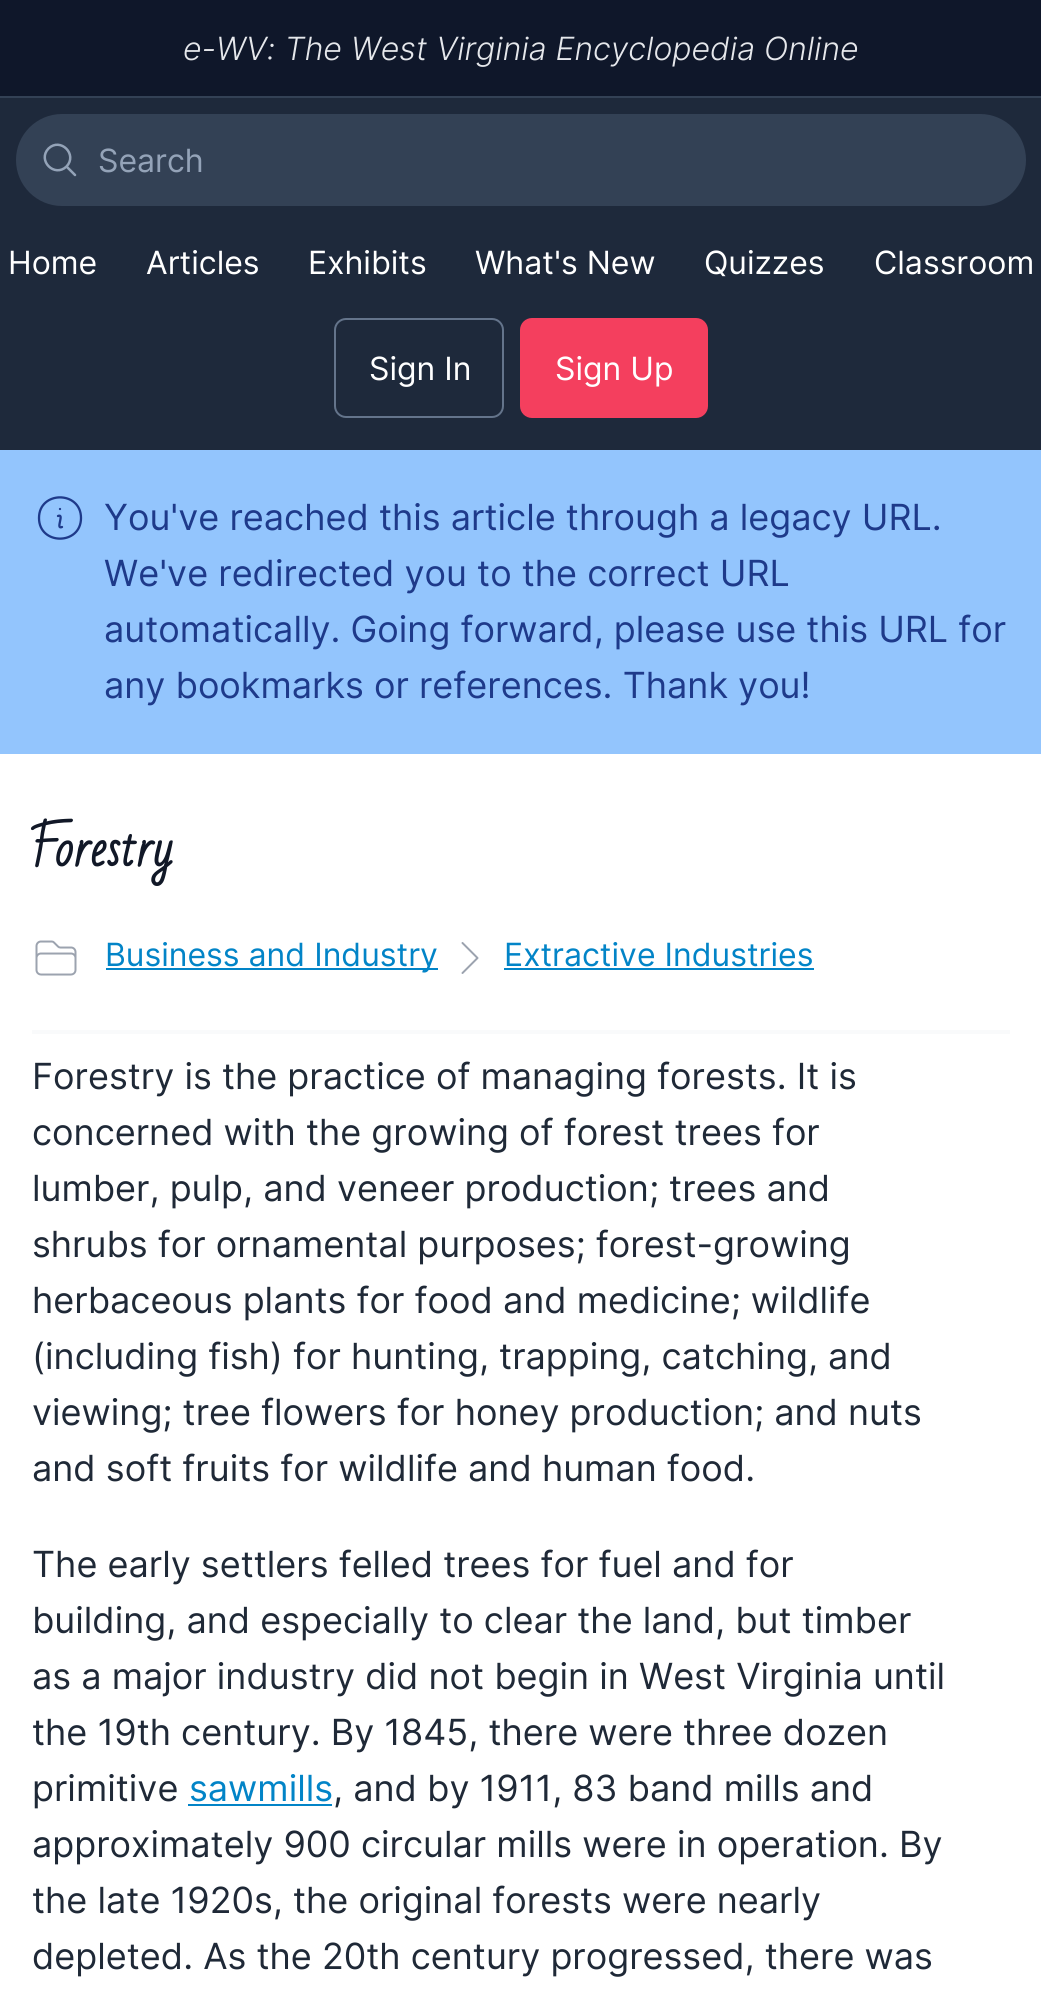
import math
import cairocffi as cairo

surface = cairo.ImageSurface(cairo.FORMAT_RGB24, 1041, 2015)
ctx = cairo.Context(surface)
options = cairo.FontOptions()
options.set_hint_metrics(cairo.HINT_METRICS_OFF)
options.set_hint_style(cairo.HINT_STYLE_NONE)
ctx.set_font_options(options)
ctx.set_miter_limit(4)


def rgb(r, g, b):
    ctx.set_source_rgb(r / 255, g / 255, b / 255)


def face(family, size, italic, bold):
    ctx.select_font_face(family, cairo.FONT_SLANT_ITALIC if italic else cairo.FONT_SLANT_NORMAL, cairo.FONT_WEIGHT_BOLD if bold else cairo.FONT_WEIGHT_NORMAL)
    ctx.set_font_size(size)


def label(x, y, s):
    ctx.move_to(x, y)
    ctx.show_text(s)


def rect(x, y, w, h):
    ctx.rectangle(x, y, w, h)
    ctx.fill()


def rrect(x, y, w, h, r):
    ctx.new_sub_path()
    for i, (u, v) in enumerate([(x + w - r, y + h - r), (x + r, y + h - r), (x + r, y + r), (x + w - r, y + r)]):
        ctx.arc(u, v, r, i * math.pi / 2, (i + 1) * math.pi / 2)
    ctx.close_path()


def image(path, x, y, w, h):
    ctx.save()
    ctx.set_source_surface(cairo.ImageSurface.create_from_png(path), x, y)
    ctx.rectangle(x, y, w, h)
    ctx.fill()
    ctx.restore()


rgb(30, 41, 59)
ctx.paint()
rgb(15, 23, 42)
rect(0, 0, 1041, 96)
rgb(51, 65, 85)
rect(0, 96, 1041, 2)
face('Inter Light', 32, 1, 0)
rgb(229, 231, 235)
label(183, 60, 'e-WV: The West Virginia Encyclopedia Online')
rgb(51, 65, 85)
rrect(17, 115, 1008, 90, 45)
ctx.fill_preserve()
ctx.stroke()
ctx.new_path()
ctx.move_to(75, 175)
ctx.line_to(66.5, 166.5)
ctx.move_to(66.5, 166.5)
ctx.curve_to(78, 154.5, 60.5, 137, 48.5, 148.5)
ctx.curve_to(37, 160.5, 54.5, 178, 66.5, 166.5)
ctx.close_path()
rgb(148, 163, 184)
ctx.set_line_width(2.5)
ctx.set_line_cap(cairo.LINE_CAP_ROUND)
ctx.set_line_join(cairo.LINE_JOIN_ROUND)
ctx.stroke()
face('Inter', 32, 0, 0)
label(98, 172, 'Search')
rgb(255, 255, 255)
label(8, 274, 'Home')
label(146, 274, 'Articles')
label(308, 274, 'Exhibits')
label(475, 274, 'What\'s New')
label(704, 274, 'Quizzes')
label(874, 274, 'Classroom')
rrect(335, 319, 168, 98, 11)
rgb(100, 116, 139)
ctx.set_line_width(2)
ctx.set_line_cap(cairo.LINE_CAP_BUTT)
ctx.set_line_join(cairo.LINE_JOIN_MITER)
ctx.stroke()
rgb(255, 255, 255)
label(369, 380, 'Sign In')
rgb(244, 63, 94)
rrect(520, 318, 188, 100, 12)
ctx.fill()
rgb(255, 255, 255)
label(555, 380, 'Sign Up')
rgb(147, 197, 253)
rect(0, 450, 1041, 304)
ctx.new_path()
ctx.move_to(58, 516)
ctx.curve_to(65, 513, 55, 530, 62, 527)
ctx.move_to(81, 518)
ctx.curve_to(81, 545.5, 39, 545.5, 39, 518)
ctx.curve_to(39, 490.5, 81, 490.5, 81, 518)
ctx.close_path()
ctx.move_to(60, 509)
ctx.line_to(60, 509)
ctx.close_path()
rgb(30, 58, 138)
ctx.set_line_width(2.3)
ctx.set_line_cap(cairo.LINE_CAP_ROUND)
ctx.set_line_join(cairo.LINE_JOIN_ROUND)
ctx.stroke()
face('Inter', 36, 0, 0)
label(104, 530, 'You\'ve reached this article through a legacy URL.')
label(104, 586, 'We\'ve redirected you to the correct URL')
label(104, 642, 'automatically. Going forward, please use this URL for')
label(104, 698, 'any bookmarks or references. Thank you!')
rgb(255, 255, 255)
rect(0, 754, 1041, 1261)
rgb(249, 250, 251)
rect(32, 1030, 978, 4)
face('Bad Script', 48, 0, 1)
rgb(17, 24, 39)
label(32, 866, 'Forestry')
image('image0.png', 35, 940, 42, 36)
rgb(2, 132, 199)
rect(106, 968, 332, 2)
face('Inter', 32, 0, 0)
label(105, 966, 'Business and Industry')
ctx.new_path()
ctx.move_to(462.5, 943)
ctx.line_to(477.5, 958)
ctx.line_to(462.5, 973)
rgb(156, 163, 175)
ctx.set_line_width(2)
ctx.stroke()
rgb(2, 132, 199)
label(504, 966, 'Extractive Industries')
rect(504, 968, 310, 2)
face('Inter', 36, 0, 0)
rgb(31, 41, 55)
label(32, 1089, 'Forestry is the practice of managing forests. It is')
label(32, 1145, 'concerned with the growing of forest trees for')
label(32, 1201, 'lumber, pulp, and veneer production; trees and')
label(32, 1257, 'shrubs for ornamental purposes; forest-growing')
label(32, 1313, 'herbaceous plants for food and medicine; wildlife')
label(32, 1369, '(including fish) for hunting, trapping, catching, and')
label(32, 1425, 'viewing; tree flowers for honey production; and nuts')
label(32, 1481, 'and soft fruits for wildlife and human food.')
label(32, 1577, 'The early settlers felled trees for fuel and for')
label(32, 1633, 'building, and especially to clear the land, but timber')
label(32, 1689, 'as a major industry did not begin in West Virginia until')
label(32, 1745, 'the 19th century. By 1845, there were three dozen')
label(32, 1801, 'primitive')
rgb(2, 132, 199)
label(189, 1801, 'sawmills')
rect(188, 1804, 144, 2)
rgb(31, 41, 55)
label(333, 1801, ', and by 1911, 83 band mills and')
label(32, 1857, 'approximately 900 circular mills were in operation. By')
label(32, 1913, 'the late 1920s, the original forests were nearly')
label(32, 1969, 'depleted. As the 20th century progressed, there was')
surface.write_to_png('render.png')
